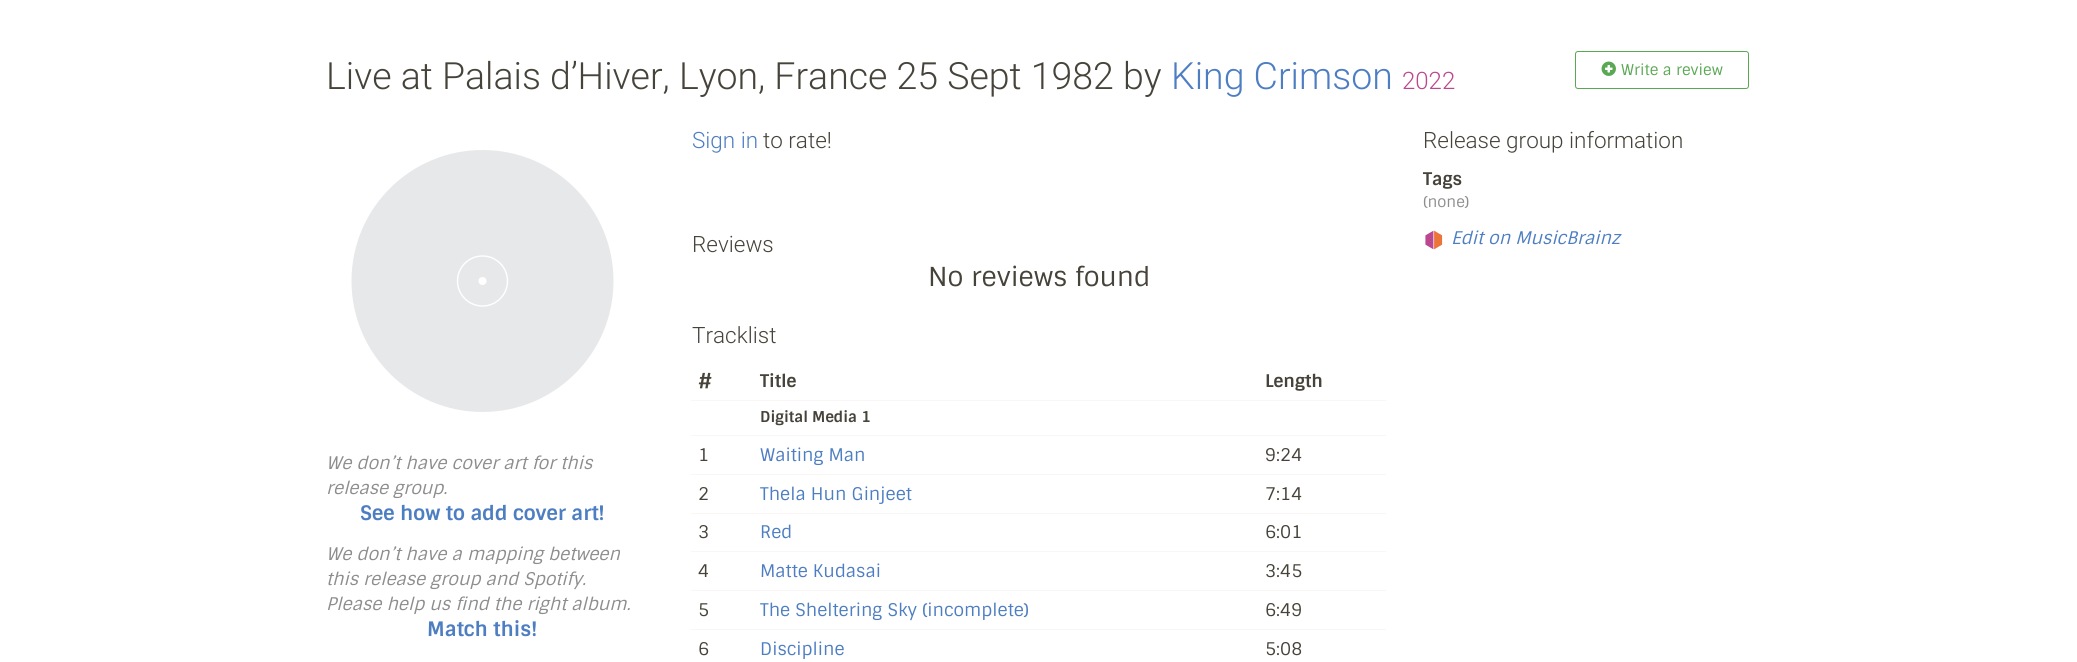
import math
import cairocffi as cairo

surface = cairo.ImageSurface(cairo.FORMAT_RGB24, 2077, 662)
ctx = cairo.Context(surface)
options = cairo.FontOptions()
options.set_hint_metrics(cairo.HINT_METRICS_OFF)
options.set_hint_style(cairo.HINT_STYLE_NONE)
ctx.set_font_options(options)
ctx.set_miter_limit(4)


def rgb(r, g, b):
    ctx.set_source_rgb(r / 255, g / 255, b / 255)


def face(family, size, italic, bold):
    ctx.select_font_face(family, cairo.FONT_SLANT_ITALIC if italic else cairo.FONT_SLANT_NORMAL, cairo.FONT_WEIGHT_BOLD if bold else cairo.FONT_WEIGHT_NORMAL)
    ctx.set_font_size(size)


def label(x, y, s):
    ctx.move_to(x, y)
    ctx.show_text(s)


def rect(x, y, w, h):
    ctx.rectangle(x, y, w, h)
    ctx.fill()


def rrect(x, y, w, h, r):
    ctx.new_sub_path()
    for i, (u, v) in enumerate([(x + w - r, y + h - r), (x + r, y + h - r), (x + r, y + r), (x + w - r, y + r)]):
        ctx.arc(u, v, r, i * math.pi / 2, (i + 1) * math.pi / 2)
    ctx.close_path()


def image(path, x, y, w, h):
    ctx.save()
    ctx.set_source_surface(cairo.ImageSurface.create_from_png(path), x, y)
    ctx.rectangle(x, y, w, h)
    ctx.fill()
    ctx.restore()


rgb(255, 255, 255)
ctx.paint()
face('Roboto Light', 37.5, 0, 0)
rgb(70, 67, 58)
label(326, 89, 'Live at Palais d’Hiver, Lyon, France 25 Sept 1982 by')
rgb(78, 126, 194)
label(1171, 89, 'King Crimson')
face('Roboto Light', 24, 0, 0)
rgb(186, 71, 143)
label(1402, 89, '2022')
rrect(1575.5, 51.5, 173, 37, 2.5)
rgb(90, 168, 84)
ctx.set_line_width(1)
ctx.stroke()
image('image0.png', 1601, 61, 15, 15)
face('Sintony', 15, 0, 0)
label(1621, 75, 'Write a review')
rgb(231, 232, 233)
ctx.new_path()
ctx.arc(482.5, 281, 131, 0, 2 * math.pi)
ctx.fill()
ctx.arc(482.5, 281, 25, 0, 2 * math.pi)
rgb(255, 255, 255)
ctx.set_line_width(1.4)
ctx.stroke()
ctx.arc(482.5, 281, 4, 0, 2 * math.pi)
ctx.fill()
face('Sintony', 17.5, 1, 0)
rgb(141, 141, 141)
label(326, 469, 'We don’t have cover art for this')
label(326, 494, 'release group.')
face('Sintony', 20, 0, 1)
rgb(78, 126, 194)
label(360, 520, 'See how to add cover art!')
face('Sintony', 17.5, 1, 0)
rgb(141, 141, 141)
label(326, 560, 'We don’t have a mapping between')
label(326, 585, 'this release group and Spotify.')
label(326, 610, 'Please help us find the right album.')
face('Sintony', 20, 0, 1)
rgb(78, 126, 194)
label(427, 636, 'Match this!')
face('Roboto Light', 22.5, 0, 0)
label(692, 148, 'Sign in')
rgb(70, 67, 58)
label(763, 148, 'to rate!')
label(692, 252, 'Reviews')
face('Sintony', 26.25, 0, 0)
label(928, 286, 'No reviews found')
face('Roboto Light', 22.5, 0, 0)
label(692, 343, 'Tracklist')
face('Sintony', 17.5, 0, 1)
label(698, 387, '#')
label(760, 387, 'Title')
label(1265, 387, 'Length')
rgb(249, 246, 245)
rect(691, 400, 695, 1)
face('Sintony', 15, 0, 1)
rgb(70, 67, 58)
label(760, 422, 'Digital Media 1')
face('Sintony', 17.5, 0, 0)
label(698, 461, '1')
rgb(78, 126, 194)
label(760, 461, 'Waiting Man')
rgb(249, 246, 245)
rect(691, 435, 695, 1)
rgb(70, 67, 58)
label(1265, 461, '9:24')
label(698, 500, '2')
rgb(78, 126, 194)
label(760, 500, 'Thela Hun Ginjeet')
rgb(249, 246, 245)
rect(691, 474, 695, 1)
rgb(70, 67, 58)
label(1265, 500, '7:14')
label(698, 538, '3')
rgb(78, 126, 194)
label(760, 538, 'Red')
rgb(249, 246, 245)
rect(691, 513, 695, 1)
rgb(70, 67, 58)
label(1265, 538, '6:01')
label(698, 577, '4')
rgb(78, 126, 194)
label(760, 577, 'Matte Kudasai')
rgb(249, 246, 245)
rect(691, 551, 695, 1)
rgb(70, 67, 58)
label(1265, 577, '3:45')
label(698, 616, '5')
rgb(78, 126, 194)
label(760, 616, 'The Sheltering Sky (incomplete)')
rgb(249, 246, 245)
rect(691, 590, 695, 1)
rgb(70, 67, 58)
label(1265, 616, '6:49')
label(698, 655, '6')
rgb(78, 126, 194)
label(760, 655, 'Discipline')
rgb(249, 246, 245)
rect(691, 629, 695, 1)
rgb(70, 67, 58)
label(1265, 655, '5:08')
face('Roboto Light', 22.5, 0, 0)
label(1423, 148, 'Release group information')
face('Sintony', 17.5, 0, 1)
label(1423, 185, 'Tags')
face('Sintony', 15, 0, 0)
rgb(141, 141, 141)
label(1423, 207, '(none)')
image('image1.png', 1425, 230, 18, 20)
face('Sintony', 17.5, 1, 0)
rgb(78, 126, 194)
label(1451, 244, 'Edit on MusicBrainz')
surface.write_to_png('render.png')
